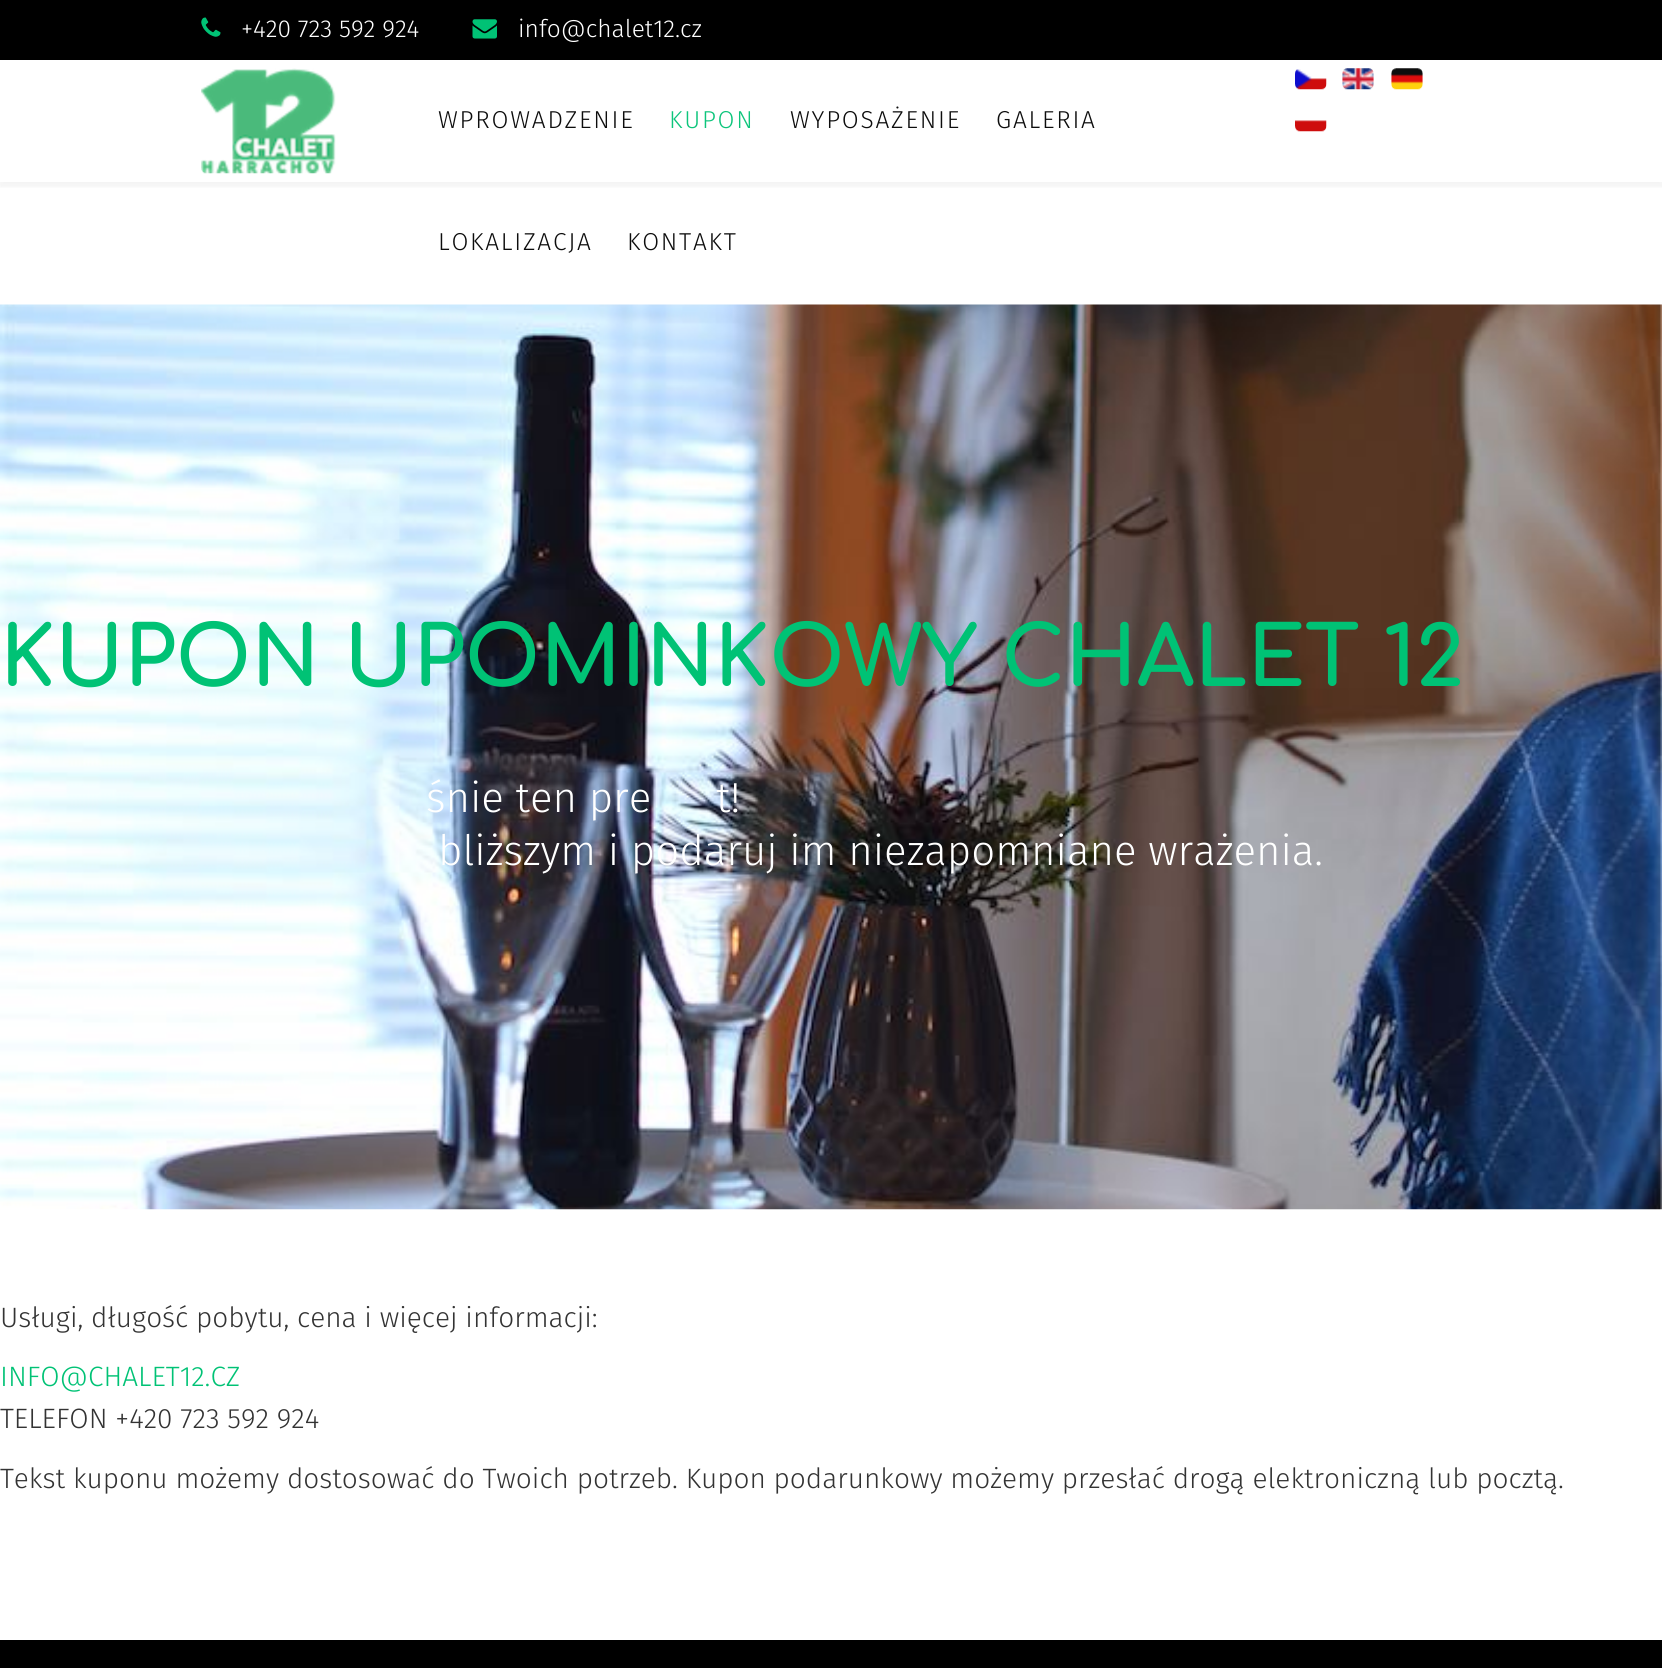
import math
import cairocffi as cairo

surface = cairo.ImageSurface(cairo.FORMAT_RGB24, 1662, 1668)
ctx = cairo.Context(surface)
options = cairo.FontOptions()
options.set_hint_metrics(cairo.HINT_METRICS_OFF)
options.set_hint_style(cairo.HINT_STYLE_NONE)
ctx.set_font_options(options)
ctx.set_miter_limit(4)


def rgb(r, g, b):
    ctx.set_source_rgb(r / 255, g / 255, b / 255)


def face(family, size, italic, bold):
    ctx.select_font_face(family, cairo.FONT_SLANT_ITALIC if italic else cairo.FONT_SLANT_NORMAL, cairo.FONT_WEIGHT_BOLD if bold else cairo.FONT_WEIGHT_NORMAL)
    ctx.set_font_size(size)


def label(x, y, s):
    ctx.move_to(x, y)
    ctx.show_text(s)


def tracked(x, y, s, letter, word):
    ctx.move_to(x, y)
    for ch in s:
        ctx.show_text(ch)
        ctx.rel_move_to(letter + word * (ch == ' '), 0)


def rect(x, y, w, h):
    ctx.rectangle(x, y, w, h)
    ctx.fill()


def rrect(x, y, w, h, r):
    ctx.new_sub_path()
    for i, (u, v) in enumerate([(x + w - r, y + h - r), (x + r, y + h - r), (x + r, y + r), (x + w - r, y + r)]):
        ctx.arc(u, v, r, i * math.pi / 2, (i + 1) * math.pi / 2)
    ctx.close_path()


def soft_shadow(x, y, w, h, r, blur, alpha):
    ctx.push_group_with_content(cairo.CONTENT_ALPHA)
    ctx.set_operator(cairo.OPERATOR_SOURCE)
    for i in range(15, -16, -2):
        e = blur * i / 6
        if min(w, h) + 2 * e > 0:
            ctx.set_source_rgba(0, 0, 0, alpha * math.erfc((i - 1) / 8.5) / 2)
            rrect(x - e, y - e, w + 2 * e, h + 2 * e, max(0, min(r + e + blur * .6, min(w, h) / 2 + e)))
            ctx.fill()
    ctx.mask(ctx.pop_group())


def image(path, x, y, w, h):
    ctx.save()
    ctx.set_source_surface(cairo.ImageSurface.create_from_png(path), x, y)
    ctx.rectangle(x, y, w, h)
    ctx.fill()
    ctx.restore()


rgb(255, 255, 255)
ctx.paint()
rgb(0, 0, 0)
rect(0, 0, 1662, 60)
image('image0.png', 201, 17, 20, 20)
face('Fira Sans Light', 24.5, 0, 0)
rgb(255, 255, 255)
label(241, 37, '+420 723 592 924')
image('image1.png', 472, 19, 25, 20)
label(518, 37, 'info@chalet12.cz')
ctx.save()
ctx.rectangle(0, 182, 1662, 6)
ctx.clip()
rgb(13, 13, 13)
soft_shadow(0, 65, 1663, 122, 0, 2.5, 0.05)
ctx.restore()
image('image2.png', 201, 68, 135, 106)
rgb(13, 13, 13)
tracked(438, 128, 'WPROWADZENIE', 1.75, 0)
rgb(13, 197, 124)
tracked(669, 128, 'KUPON', 1.75, 0)
rgb(13, 13, 13)
tracked(790, 128, 'WYPOSAŻENIE', 1.75, 0)
tracked(996, 128, 'GALERIA', 1.75, 0)
tracked(438, 250, 'LOKALIZACJA', 1.75, 0)
tracked(627, 250, 'KONTAKT', 1.75, 0)
image('image3.png', 1295, 69, 32, 21)
image('image4.png', 1342, 68, 32, 22)
image('image5.png', 1391, 68, 32, 22)
image('image6.png', 1295, 120, 32, 12)
image('image7.png', 0, 304, 1662, 906)
face('Comfortaa', 82.25, 0, 1)
rgb(0, 194, 117)
label(0, 686, 'KUPON UPOMINKOWY CHALET 12')
face('Fira Sans Light', 42, 0, 0)
rgb(255, 255, 255)
label(426, 812, 'śnie ten pre')
label(716, 812, 't!')
label(438, 865, 'bliższym i podaruj im niezapomniane wrażenia.')
face('Fira Sans Light', 28, 0, 0)
rgb(51, 51, 51)
label(0, 1327, 'Usługi, długość pobytu, cena i więcej informacji:')
rgb(0, 194, 117)
label(0, 1386, 'INFO@CHALET12.CZ')
rgb(51, 51, 51)
label(0, 1428, 'TELEFON +420 723 592 924')
label(0, 1488, 'Tekst kuponu możemy dostosować do Twoich potrzeb. Kupon podarunkowy możemy przesłać drogą elektroniczną lub pocztą.')
rgb(0, 0, 0)
rect(0, 1640, 1662, 28)
surface.write_to_png('render.png')
